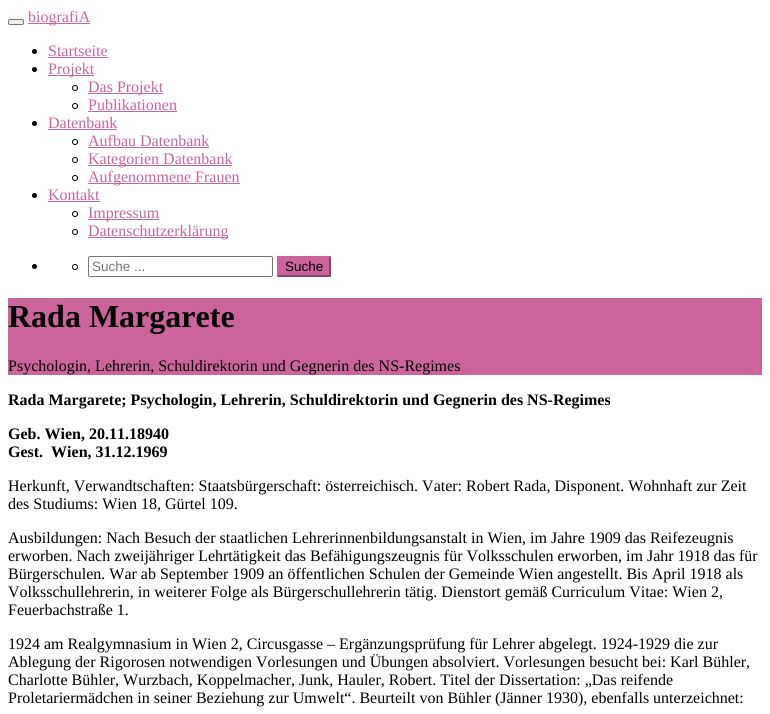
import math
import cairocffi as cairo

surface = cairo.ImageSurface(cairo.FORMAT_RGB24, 770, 714)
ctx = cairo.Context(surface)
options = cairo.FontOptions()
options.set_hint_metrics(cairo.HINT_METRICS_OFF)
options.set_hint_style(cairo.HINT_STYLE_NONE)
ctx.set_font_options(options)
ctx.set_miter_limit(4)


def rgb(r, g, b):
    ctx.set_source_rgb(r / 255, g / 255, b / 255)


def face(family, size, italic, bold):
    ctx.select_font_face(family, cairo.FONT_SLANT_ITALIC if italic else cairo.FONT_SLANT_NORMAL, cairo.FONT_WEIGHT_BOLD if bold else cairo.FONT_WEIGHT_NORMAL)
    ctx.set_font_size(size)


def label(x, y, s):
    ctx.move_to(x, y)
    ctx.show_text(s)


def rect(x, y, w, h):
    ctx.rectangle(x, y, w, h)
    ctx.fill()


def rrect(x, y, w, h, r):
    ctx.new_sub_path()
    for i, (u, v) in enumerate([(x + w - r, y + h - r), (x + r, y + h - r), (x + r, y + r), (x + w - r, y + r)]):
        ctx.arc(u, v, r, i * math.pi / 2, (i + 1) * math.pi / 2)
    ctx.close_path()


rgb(255, 255, 255)
ctx.paint()
rgb(239, 239, 239)
rrect(8.5, 19.5, 15, 5, 1.5)
ctx.fill_preserve()
rgb(118, 118, 118)
ctx.set_line_width(1)
ctx.stroke()
rgb(204, 100, 156)
rect(28, 23, 62, 1)
face('Liberation Serif', 16, 0, 0)
label(28, 22, 'biografiA')
rgb(0, 0, 0)
ctx.new_path()
ctx.arc(34.5, 51.5, 2.5, 0, 2 * math.pi)
ctx.fill()
rgb(204, 100, 156)
label(48, 56, 'Startseite')
rect(48, 57, 60, 1)
rgb(0, 0, 0)
ctx.new_path()
ctx.arc(34.5, 69.5, 2.5, 0, 2 * math.pi)
ctx.fill()
rgb(204, 100, 156)
rect(48, 75, 46, 1)
label(48, 74, 'Projekt')
ctx.new_path()
ctx.arc(75, 88, 2.5, 0, 2 * math.pi)
rgb(0, 0, 0)
ctx.stroke()
rgb(204, 100, 156)
rect(88, 93, 75, 1)
label(88, 92, 'Das Projekt')
ctx.new_path()
ctx.arc(75, 106, 2.5, 0, 2 * math.pi)
rgb(0, 0, 0)
ctx.stroke()
rgb(204, 100, 156)
label(88, 110, 'Publikationen')
rect(88, 111, 89, 1)
rgb(0, 0, 0)
ctx.new_path()
ctx.arc(34.5, 123.5, 2.5, 0, 2 * math.pi)
ctx.fill()
rgb(204, 100, 156)
label(48, 128, 'Datenbank')
rect(48, 129, 69, 1)
ctx.new_path()
ctx.arc(75, 142, 2.5, 0, 2 * math.pi)
rgb(0, 0, 0)
ctx.stroke()
rgb(204, 100, 156)
label(88, 146, 'Aufbau Datenbank')
rect(88, 147, 121, 1)
ctx.new_path()
ctx.arc(75, 160, 2.5, 0, 2 * math.pi)
rgb(0, 0, 0)
ctx.stroke()
rgb(204, 100, 156)
rect(88, 165, 144, 1)
label(88, 164, 'Kategorien Datenbank')
ctx.new_path()
ctx.arc(75, 178, 2.5, 0, 2 * math.pi)
rgb(0, 0, 0)
ctx.stroke()
rgb(204, 100, 156)
rect(88, 183, 152, 1)
label(88, 182, 'Aufgenommene Frauen')
rgb(0, 0, 0)
ctx.new_path()
ctx.arc(34.5, 195.5, 2.5, 0, 2 * math.pi)
ctx.fill()
rgb(204, 100, 156)
label(48, 200, 'Kontakt')
rect(48, 201, 52, 1)
ctx.new_path()
ctx.arc(75, 214, 2.5, 0, 2 * math.pi)
rgb(0, 0, 0)
ctx.stroke()
rgb(204, 100, 156)
rect(88, 219, 71, 1)
label(88, 218, 'Impressum')
ctx.new_path()
ctx.arc(75, 232, 2.5, 0, 2 * math.pi)
rgb(0, 0, 0)
ctx.stroke()
rgb(204, 100, 156)
rect(88, 237, 140, 1)
label(88, 236, 'Datenschutzerklärung')
rgb(0, 0, 0)
ctx.new_path()
ctx.arc(34.5, 266.5, 2.5, 0, 2 * math.pi)
ctx.fill()
ctx.arc(75, 267, 2.5, 0, 2 * math.pi)
ctx.stroke()
rrect(88.5, 256.5, 184, 20, 1.5)
rgb(118, 118, 118)
ctx.stroke()
face('Liberation Sans', 13.5, 0, 0)
rgb(117, 117, 117)
label(92, 271, 'Suche ...')
rgb(204, 100, 156)
rect(277, 256, 54, 21)
rgb(136, 67, 104)
ctx.new_path()
ctx.move_to(331, 256)
ctx.line_to(331, 277)
ctx.line_to(329, 275)
ctx.line_to(329, 258)
ctx.close_path()
ctx.fill()
ctx.new_path()
ctx.move_to(331, 277)
ctx.line_to(277, 277)
ctx.line_to(279, 275)
ctx.line_to(329, 275)
ctx.close_path()
ctx.fill()
rgb(204, 100, 156)
ctx.new_path()
ctx.move_to(277, 277)
ctx.line_to(277, 256)
ctx.line_to(279, 258)
ctx.line_to(279, 275)
ctx.close_path()
ctx.fill()
rgb(0, 0, 0)
label(285, 271, 'Suche')
rgb(204, 100, 156)
rect(8, 298, 754, 77)
face('Liberation Serif', 32, 0, 1)
rgb(0, 0, 0)
label(8, 327, 'Rada Margarete')
face('Liberation Serif', 16, 0, 0)
label(8, 371, 'Psychologin, Lehrerin, Schuldirektorin und Gegnerin des NS-Regimes')
face('Liberation Serif', 16, 0, 1)
label(8, 405, 'Rada Margarete; Psychologin, Lehrerin, Schuldirektorin und Gegnerin des NS-Regimes')
label(8, 439, 'Geb. Wien, 20.11.18940')
label(8, 457, 'Gest.  Wien, 31.12.1969')
face('Liberation Serif', 16, 0, 0)
label(8, 491, 'Herkunft, Verwandtschaften: Staatsbürgerschaft: österreichisch. Vater: Robert Rada, Disponent. Wohnhaft zur Zeit')
label(8, 509, 'des Studiums: Wien 18, Gürtel 109.')
label(8, 543, 'Ausbildungen: Nach Besuch der staatlichen Lehrerinnenbildungsanstalt in Wien, im Jahre 1909 das Reifezeugnis')
label(8, 561, 'erworben. Nach zweijähriger Lehrtätigkeit das Befähigungszeugnis für Volksschulen erworben, im Jahr 1918 das für')
label(8, 579, 'Bürgerschulen. War ab September 1909 an öffentlichen Schulen der Gemeinde Wien angestellt. Bis April 1918 als')
label(8, 597, 'Volksschullehrerin, in weiterer Folge als Bürgerschullehrerin tätig. Dienstort gemäß Curriculum Vitae: Wien 2,')
label(8, 615, 'Feuerbachstraße 1.')
label(8, 649, '1924 am Realgymnasium in Wien 2, Circusgasse – Ergänzungsprüfung für Lehrer abgelegt. 1924-1929 die zur')
label(8, 667, 'Ablegung der Rigorosen notwendigen Vorlesungen und Übungen absolviert. Vorlesungen besucht bei: Karl Bühler,')
label(8, 685, 'Charlotte Bühler, Wurzbach, Koppelmacher, Junk, Hauler, Robert. Titel der Dissertation: „Das reifende')
label(8, 703, 'Proletariermädchen in seiner Beziehung zur Umwelt“. Beurteilt von Bühler (Jänner 1930), ebenfalls unterzeichnet:')
surface.write_to_png('render.png')
